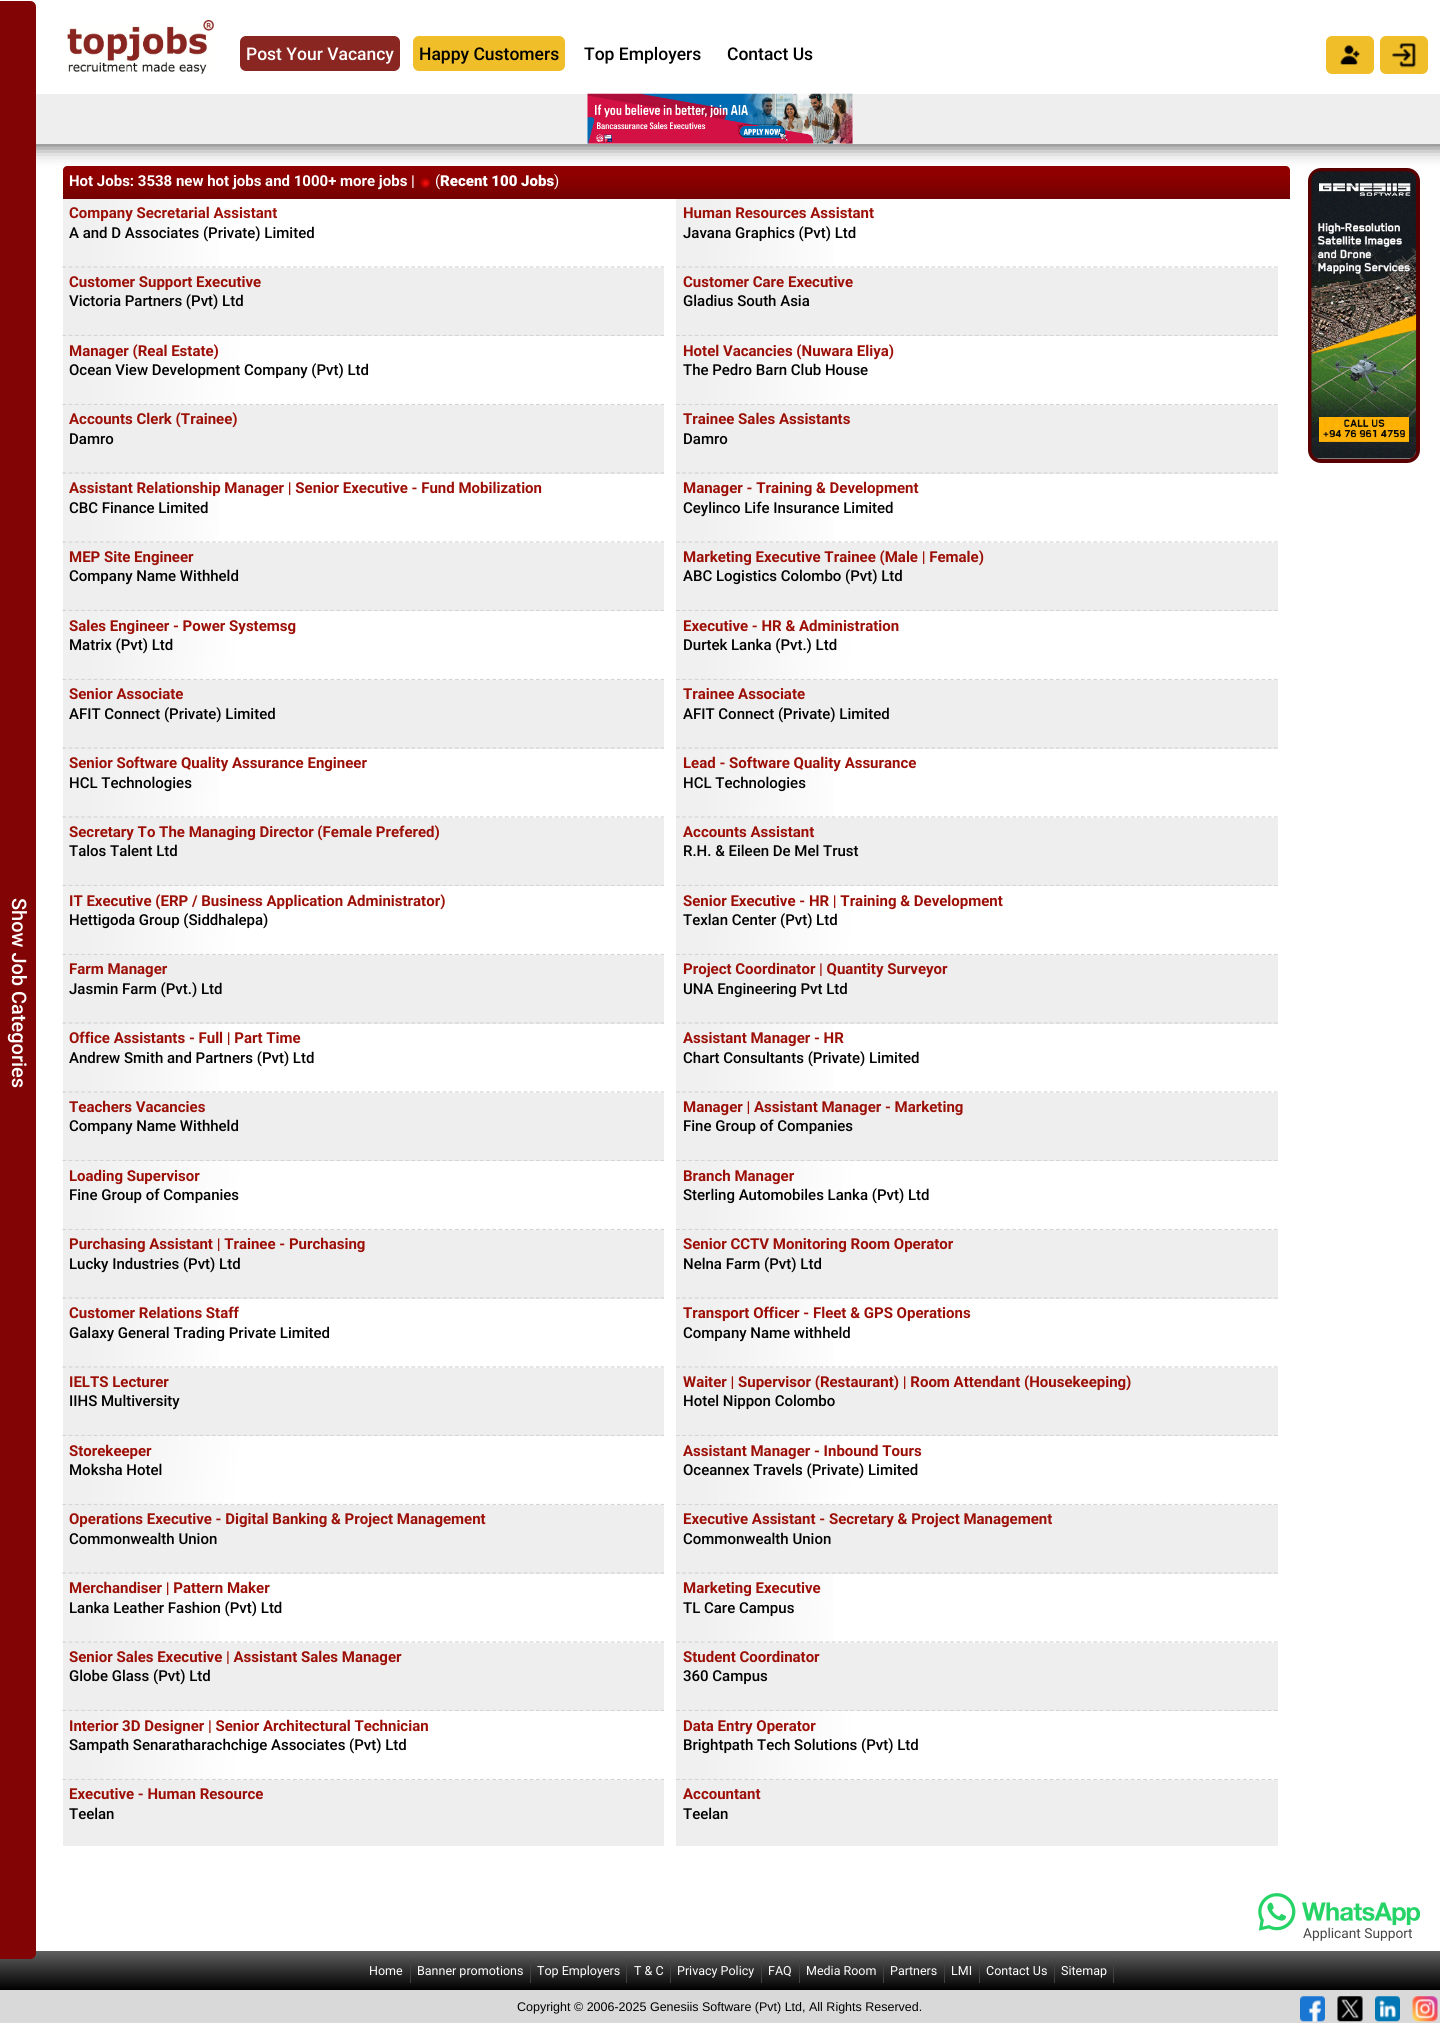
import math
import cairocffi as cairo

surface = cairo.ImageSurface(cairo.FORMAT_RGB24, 1440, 2023)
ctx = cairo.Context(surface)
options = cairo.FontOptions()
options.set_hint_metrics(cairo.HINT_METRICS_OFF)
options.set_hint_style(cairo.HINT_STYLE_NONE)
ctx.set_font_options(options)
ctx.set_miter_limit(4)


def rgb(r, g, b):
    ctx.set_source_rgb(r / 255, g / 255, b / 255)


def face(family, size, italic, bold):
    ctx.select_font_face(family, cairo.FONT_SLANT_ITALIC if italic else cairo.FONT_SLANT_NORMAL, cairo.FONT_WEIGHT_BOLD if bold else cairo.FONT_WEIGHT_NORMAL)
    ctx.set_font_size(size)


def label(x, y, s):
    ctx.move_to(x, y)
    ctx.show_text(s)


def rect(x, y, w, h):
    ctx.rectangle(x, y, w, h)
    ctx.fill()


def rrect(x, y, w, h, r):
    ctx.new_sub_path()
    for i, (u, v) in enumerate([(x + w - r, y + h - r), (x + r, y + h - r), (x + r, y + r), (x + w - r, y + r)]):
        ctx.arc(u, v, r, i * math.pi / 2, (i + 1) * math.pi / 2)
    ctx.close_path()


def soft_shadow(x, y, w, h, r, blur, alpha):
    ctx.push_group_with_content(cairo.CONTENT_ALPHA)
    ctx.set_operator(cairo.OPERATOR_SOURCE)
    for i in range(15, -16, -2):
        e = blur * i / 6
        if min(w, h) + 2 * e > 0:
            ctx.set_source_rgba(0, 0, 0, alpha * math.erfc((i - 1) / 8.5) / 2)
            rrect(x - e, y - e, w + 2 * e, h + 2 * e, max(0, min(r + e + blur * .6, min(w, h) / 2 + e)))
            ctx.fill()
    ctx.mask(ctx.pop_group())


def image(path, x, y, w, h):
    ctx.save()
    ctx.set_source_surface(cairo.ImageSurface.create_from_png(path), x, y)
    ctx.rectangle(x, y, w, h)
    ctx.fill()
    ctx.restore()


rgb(255, 255, 255)
ctx.paint()
gradient = cairo.LinearGradient(676, 199, 676, 166)
gradient.add_color_stop_rgba(0, 0.451, 0.004, 0.004, 1)
gradient.add_color_stop_rgba(0.75, 0.565, 0, 0, 1)
ctx.set_source(gradient)
ctx.new_path()
ctx.move_to(67, 166)
ctx.line_to(1286, 166)
ctx.curve_to(1288, 166, 1290, 168, 1290, 170)
ctx.line_to(1290, 199)
ctx.line_to(63, 199)
ctx.line_to(63, 170)
ctx.curve_to(63, 168, 65, 166, 67, 166)
ctx.close_path()
ctx.fill()
rrect(1310, 170, 108, 291, 11)
rgb(88, 0, 0)
ctx.set_line_width(4)
ctx.stroke()
image('image5.png', 1311, 171, 106, 288)
rgb(0, 0, 0)
soft_shadow(-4, -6, 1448, 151, 0, 9.5, 0.75)
rgb(255, 255, 255)
rect(0, 0, 1440, 94)
image('image0.png', 67, 20, 147, 54)
rgb(137, 38, 33)
rrect(240, 36, 160, 35, 6)
ctx.fill()
face('Roboto Medium', 17.5, 0, 0)
rgb(255, 255, 255)
label(246, 60, 'Post Your Vacancy')
rgb(240, 190, 40)
rrect(413, 36, 152, 35, 6)
ctx.fill()
rgb(0, 0, 0)
label(419, 60, 'Happy Customers')
label(584, 60, 'Top Employers')
label(727, 60, 'Contact Us')
rgb(240, 190, 40)
rrect(1326, 36, 48, 38, 6)
ctx.fill()
image('image1.png', 1340, 45, 20, 20)
rrect(1380, 36, 48, 38, 6)
ctx.fill()
image('image2.png', 1391, 43, 25, 25)
rgb(238, 238, 238)
rect(36, 94, 1404, 50)
image('image3.png', 587, 93, 266, 51)
gradient = cairo.LinearGradient(720, 1951, 720, 1990)
gradient.add_color_stop_rgba(0, 0.373, 0.373, 0.373, 1)
gradient.add_color_stop_rgba(1, 0, 0, 0, 1)
ctx.set_source(gradient)
rect(0, 1951, 1440, 39)
rgb(131, 4, 4)
ctx.new_path()
ctx.move_to(-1, 1)
ctx.line_to(30, 1)
ctx.curve_to(33.5, 1, 36, 3.5, 36, 7)
ctx.line_to(36, 1953)
ctx.curve_to(36, 1956.5, 33.5, 1959, 30, 1959)
ctx.line_to(-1, 1959)
ctx.close_path()
ctx.fill()
face('Roboto Medium', 20, 0, 0)
rgb(255, 255, 255)
ctx.save()
ctx.translate(12, 898)
ctx.rotate(90 * math.pi / 180)
label(0, 0, 'Show Job Categories')
ctx.restore()
face('Roboto', 15, 0, 1)
label(69, 186, 'Hot Jobs: 3538 new hot jobs and 1000+ more jobs |')
image('image4.png', 420, 177, 11, 11)
face('Roboto', 15, 0, 0)
label(435, 186, '(')
face('Roboto Black', 15, 0, 0)
label(440, 186, 'Recent 100 Jobs')
face('Roboto', 15, 0, 0)
label(554, 186, ')')
gradient = cairo.LinearGradient(664, 259, 62, 206)
gradient.add_color_stop_rgba(0.7, 1, 1, 1, 1)
gradient.add_color_stop_rgba(0.95, 0.941, 0.941, 0.941, 1)
ctx.set_source(gradient)
rect(63, 199, 156, 67)
gradient = cairo.LinearGradient(664, 326, 62, 274)
gradient.add_color_stop_rgba(0.7, 1, 1, 1, 1)
gradient.add_color_stop_rgba(0.95, 0.941, 0.941, 0.941, 1)
ctx.set_source(gradient)
rect(63, 266, 156, 2)
ctx.new_path()
ctx.move_to(62.5, 267)
ctx.line_to(664, 267)
rgb(212, 212, 212)
ctx.set_line_width(1.2)
ctx.set_dash([3.75, 2.48])
ctx.stroke()
face('Roboto', 15, 0, 1)
rgb(156, 15, 7)
label(69, 218, 'Company Secretarial Assistant')
face('Roboto Medium', 15, 0, 0)
rgb(0, 0, 0)
label(69, 238, 'A and D Associates (Private) Limited')
rgb(238, 238, 238)
rect(63, 268, 601, 68)
ctx.new_path()
ctx.move_to(62.5, 335.5)
ctx.line_to(664, 335.5)
rgb(212, 212, 212)
ctx.stroke()
face('Roboto', 15, 0, 1)
rgb(156, 15, 7)
label(69, 287, 'Customer Support Executive')
face('Roboto Medium', 15, 0, 0)
rgb(0, 0, 0)
label(69, 306, 'Victoria Partners (Pvt) Ltd')
gradient = cairo.LinearGradient(664, 396, 62, 344)
gradient.add_color_stop_rgba(0.7, 1, 1, 1, 1)
gradient.add_color_stop_rgba(0.95, 0.941, 0.941, 0.941, 1)
ctx.set_source(gradient)
rect(63, 336, 601, 68)
gradient = cairo.LinearGradient(664, 464, 62, 411)
gradient.add_color_stop_rgba(0.7, 1, 1, 1, 1)
gradient.add_color_stop_rgba(0.95, 0.941, 0.941, 0.941, 1)
ctx.set_source(gradient)
rect(63, 404, 156, 1)
ctx.new_path()
ctx.move_to(62.5, 404.5)
ctx.line_to(664, 404.5)
rgb(212, 212, 212)
ctx.stroke()
face('Roboto', 15, 0, 1)
rgb(156, 15, 7)
label(69, 356, 'Manager (Real Estate)')
face('Roboto Medium', 15, 0, 0)
rgb(0, 0, 0)
label(69, 375, 'Ocean View Development Company (Pvt) Ltd')
rgb(238, 238, 238)
rect(63, 405, 601, 69)
ctx.new_path()
ctx.move_to(62.5, 473)
ctx.line_to(664, 473)
rgb(212, 212, 212)
ctx.stroke()
face('Roboto', 15, 0, 1)
rgb(156, 15, 7)
label(69, 424, 'Accounts Clerk (Trainee)')
face('Roboto Medium', 15, 0, 0)
rgb(0, 0, 0)
label(69, 444, 'Damro')
gradient = cairo.LinearGradient(664, 534, 62, 481)
gradient.add_color_stop_rgba(0.7, 1, 1, 1, 1)
gradient.add_color_stop_rgba(0.95, 0.941, 0.941, 0.941, 1)
ctx.set_source(gradient)
rect(63, 474, 156, 67)
gradient = cairo.LinearGradient(664, 601, 62, 549)
gradient.add_color_stop_rgba(0.7, 1, 1, 1, 1)
gradient.add_color_stop_rgba(0.95, 0.941, 0.941, 0.941, 1)
ctx.set_source(gradient)
rect(63, 541, 156, 2)
ctx.new_path()
ctx.move_to(62.5, 542)
ctx.line_to(664, 542)
rgb(212, 212, 212)
ctx.stroke()
face('Roboto', 15, 0, 1)
rgb(156, 15, 7)
label(69, 493, 'Assistant Relationship Manager | Senior Executive - Fund Mobilization')
face('Roboto Medium', 15, 0, 0)
rgb(0, 0, 0)
label(69, 513, 'CBC Finance Limited')
rgb(238, 238, 238)
rect(63, 543, 601, 68)
ctx.new_path()
ctx.move_to(62.5, 610.5)
ctx.line_to(664, 610.5)
rgb(212, 212, 212)
ctx.stroke()
face('Roboto', 15, 0, 1)
rgb(156, 15, 7)
label(69, 562, 'MEP Site Engineer')
face('Roboto Medium', 15, 0, 0)
rgb(0, 0, 0)
label(69, 581, 'Company Name Withheld')
gradient = cairo.LinearGradient(664, 671, 62, 619)
gradient.add_color_stop_rgba(0.7, 1, 1, 1, 1)
gradient.add_color_stop_rgba(0.95, 0.941, 0.941, 0.941, 1)
ctx.set_source(gradient)
rect(63, 611, 601, 68)
gradient = cairo.LinearGradient(664, 739, 62, 686)
gradient.add_color_stop_rgba(0.7, 1, 1, 1, 1)
gradient.add_color_stop_rgba(0.95, 0.941, 0.941, 0.941, 1)
ctx.set_source(gradient)
rect(63, 679, 156, 1)
ctx.new_path()
ctx.move_to(62.5, 679.5)
ctx.line_to(664, 679.5)
rgb(212, 212, 212)
ctx.stroke()
face('Roboto', 15, 0, 1)
rgb(156, 15, 7)
label(69, 631, 'Sales Engineer - Power Systemsg')
face('Roboto Medium', 15, 0, 0)
rgb(0, 0, 0)
label(69, 650, 'Matrix (Pvt) Ltd')
rgb(238, 238, 238)
rect(63, 680, 601, 69)
ctx.new_path()
ctx.move_to(62.5, 748)
ctx.line_to(664, 748)
rgb(212, 212, 212)
ctx.stroke()
face('Roboto', 15, 0, 1)
rgb(156, 15, 7)
label(69, 699, 'Senior Associate')
face('Roboto Medium', 15, 0, 0)
rgb(0, 0, 0)
label(69, 719, 'AFIT Connect (Private) Limited')
gradient = cairo.LinearGradient(664, 809, 62, 756)
gradient.add_color_stop_rgba(0.7, 1, 1, 1, 1)
gradient.add_color_stop_rgba(0.95, 0.941, 0.941, 0.941, 1)
ctx.set_source(gradient)
rect(63, 749, 156, 67)
gradient = cairo.LinearGradient(664, 876, 62, 824)
gradient.add_color_stop_rgba(0.7, 1, 1, 1, 1)
gradient.add_color_stop_rgba(0.95, 0.941, 0.941, 0.941, 1)
ctx.set_source(gradient)
rect(63, 816, 156, 2)
ctx.new_path()
ctx.move_to(62.5, 817)
ctx.line_to(664, 817)
rgb(212, 212, 212)
ctx.stroke()
face('Roboto', 15, 0, 1)
rgb(156, 15, 7)
label(69, 768, 'Senior Software Quality Assurance Engineer')
face('Roboto Medium', 15, 0, 0)
rgb(0, 0, 0)
label(69, 788, 'HCL Technologies')
rgb(238, 238, 238)
rect(63, 818, 601, 68)
ctx.new_path()
ctx.move_to(62.5, 885.5)
ctx.line_to(664, 885.5)
rgb(212, 212, 212)
ctx.stroke()
face('Roboto', 15, 0, 1)
rgb(156, 15, 7)
label(69, 837, 'Secretary To The Managing Director (Female Prefered)')
face('Roboto Medium', 15, 0, 0)
rgb(0, 0, 0)
label(69, 856, 'Talos Talent Ltd')
gradient = cairo.LinearGradient(664, 946, 62, 894)
gradient.add_color_stop_rgba(0.7, 1, 1, 1, 1)
gradient.add_color_stop_rgba(0.95, 0.941, 0.941, 0.941, 1)
ctx.set_source(gradient)
rect(63, 886, 601, 68)
gradient = cairo.LinearGradient(664, 1014, 62, 961)
gradient.add_color_stop_rgba(0.7, 1, 1, 1, 1)
gradient.add_color_stop_rgba(0.95, 0.941, 0.941, 0.941, 1)
ctx.set_source(gradient)
rect(63, 954, 156, 1)
ctx.new_path()
ctx.move_to(62.5, 954.5)
ctx.line_to(664, 954.5)
rgb(212, 212, 212)
ctx.stroke()
face('Roboto', 15, 0, 1)
rgb(156, 15, 7)
label(69, 906, 'IT Executive (ERP / Business Application Administrator)')
face('Roboto Medium', 15, 0, 0)
rgb(0, 0, 0)
label(69, 925, 'Hettigoda Group (Siddhalepa)')
rgb(238, 238, 238)
rect(63, 955, 601, 69)
ctx.new_path()
ctx.move_to(62.5, 1023)
ctx.line_to(664, 1023)
rgb(212, 212, 212)
ctx.stroke()
face('Roboto', 15, 0, 1)
rgb(156, 15, 7)
label(69, 974, 'Farm Manager')
face('Roboto Medium', 15, 0, 0)
rgb(0, 0, 0)
label(69, 994, 'Jasmin Farm (Pvt.) Ltd')
gradient = cairo.LinearGradient(664, 1084, 62, 1031)
gradient.add_color_stop_rgba(0.7, 1, 1, 1, 1)
gradient.add_color_stop_rgba(0.95, 0.941, 0.941, 0.941, 1)
ctx.set_source(gradient)
rect(63, 1024, 156, 67)
gradient = cairo.LinearGradient(664, 1151, 62, 1099)
gradient.add_color_stop_rgba(0.7, 1, 1, 1, 1)
gradient.add_color_stop_rgba(0.95, 0.941, 0.941, 0.941, 1)
ctx.set_source(gradient)
rect(63, 1091, 156, 2)
ctx.new_path()
ctx.move_to(62.5, 1092)
ctx.line_to(664, 1092)
rgb(212, 212, 212)
ctx.stroke()
face('Roboto', 15, 0, 1)
rgb(156, 15, 7)
label(69, 1043, 'Office Assistants - Full | Part Time')
face('Roboto Medium', 15, 0, 0)
rgb(0, 0, 0)
label(69, 1063, 'Andrew Smith and Partners (Pvt) Ltd')
rgb(238, 238, 238)
rect(63, 1093, 601, 68)
ctx.new_path()
ctx.move_to(62.5, 1160.5)
ctx.line_to(664, 1160.5)
rgb(212, 212, 212)
ctx.stroke()
face('Roboto', 15, 0, 1)
rgb(156, 15, 7)
label(69, 1112, 'Teachers Vacancies')
face('Roboto Medium', 15, 0, 0)
rgb(0, 0, 0)
label(69, 1131, 'Company Name Withheld')
gradient = cairo.LinearGradient(664, 1221, 62, 1169)
gradient.add_color_stop_rgba(0.7, 1, 1, 1, 1)
gradient.add_color_stop_rgba(0.95, 0.941, 0.941, 0.941, 1)
ctx.set_source(gradient)
rect(63, 1161, 601, 68)
gradient = cairo.LinearGradient(664, 1289, 62, 1236)
gradient.add_color_stop_rgba(0.7, 1, 1, 1, 1)
gradient.add_color_stop_rgba(0.95, 0.941, 0.941, 0.941, 1)
ctx.set_source(gradient)
rect(63, 1229, 156, 1)
ctx.new_path()
ctx.move_to(62.5, 1229.5)
ctx.line_to(664, 1229.5)
rgb(212, 212, 212)
ctx.stroke()
face('Roboto', 15, 0, 1)
rgb(156, 15, 7)
label(69, 1181, 'Loading Supervisor')
face('Roboto Medium', 15, 0, 0)
rgb(0, 0, 0)
label(69, 1200, 'Fine Group of Companies')
rgb(238, 238, 238)
rect(63, 1230, 601, 69)
ctx.new_path()
ctx.move_to(62.5, 1298)
ctx.line_to(664, 1298)
rgb(212, 212, 212)
ctx.stroke()
face('Roboto', 15, 0, 1)
rgb(156, 15, 7)
label(69, 1249, 'Purchasing Assistant | Trainee - Purchasing')
face('Roboto Medium', 15, 0, 0)
rgb(0, 0, 0)
label(69, 1269, 'Lucky Industries (Pvt) Ltd')
gradient = cairo.LinearGradient(664, 1359, 62, 1306)
gradient.add_color_stop_rgba(0.7, 1, 1, 1, 1)
gradient.add_color_stop_rgba(0.95, 0.941, 0.941, 0.941, 1)
ctx.set_source(gradient)
rect(63, 1299, 156, 67)
gradient = cairo.LinearGradient(664, 1426, 62, 1374)
gradient.add_color_stop_rgba(0.7, 1, 1, 1, 1)
gradient.add_color_stop_rgba(0.95, 0.941, 0.941, 0.941, 1)
ctx.set_source(gradient)
rect(63, 1366, 156, 2)
ctx.new_path()
ctx.move_to(62.5, 1367)
ctx.line_to(664, 1367)
rgb(212, 212, 212)
ctx.stroke()
face('Roboto', 15, 0, 1)
rgb(156, 15, 7)
label(69, 1318, 'Customer Relations Staff')
face('Roboto Medium', 15, 0, 0)
rgb(0, 0, 0)
label(69, 1338, 'Galaxy General Trading Private Limited')
rgb(238, 238, 238)
rect(63, 1368, 601, 68)
ctx.new_path()
ctx.move_to(62.5, 1435.5)
ctx.line_to(664, 1435.5)
rgb(212, 212, 212)
ctx.stroke()
face('Roboto', 15, 0, 1)
rgb(156, 15, 7)
label(69, 1387, 'IELTS Lecturer')
face('Roboto Medium', 15, 0, 0)
rgb(0, 0, 0)
label(69, 1406, 'IIHS Multiversity')
gradient = cairo.LinearGradient(664, 1496, 62, 1444)
gradient.add_color_stop_rgba(0.7, 1, 1, 1, 1)
gradient.add_color_stop_rgba(0.95, 0.941, 0.941, 0.941, 1)
ctx.set_source(gradient)
rect(63, 1436, 601, 68)
gradient = cairo.LinearGradient(664, 1564, 62, 1511)
gradient.add_color_stop_rgba(0.7, 1, 1, 1, 1)
gradient.add_color_stop_rgba(0.95, 0.941, 0.941, 0.941, 1)
ctx.set_source(gradient)
rect(63, 1504, 156, 1)
ctx.new_path()
ctx.move_to(62.5, 1504.5)
ctx.line_to(664, 1504.5)
rgb(212, 212, 212)
ctx.stroke()
face('Roboto', 15, 0, 1)
rgb(156, 15, 7)
label(69, 1456, 'Storekeeper')
face('Roboto Medium', 15, 0, 0)
rgb(0, 0, 0)
label(69, 1475, 'Moksha Hotel')
rgb(238, 238, 238)
rect(63, 1505, 601, 69)
ctx.new_path()
ctx.move_to(62.5, 1573)
ctx.line_to(664, 1573)
rgb(212, 212, 212)
ctx.stroke()
face('Roboto', 15, 0, 1)
rgb(156, 15, 7)
label(69, 1524, 'Operations Executive - Digital Banking & Project Management')
face('Roboto Medium', 15, 0, 0)
rgb(0, 0, 0)
label(69, 1544, 'Commonwealth Union')
gradient = cairo.LinearGradient(664, 1634, 62, 1581)
gradient.add_color_stop_rgba(0.7, 1, 1, 1, 1)
gradient.add_color_stop_rgba(0.95, 0.941, 0.941, 0.941, 1)
ctx.set_source(gradient)
rect(63, 1574, 156, 67)
gradient = cairo.LinearGradient(664, 1701, 62, 1649)
gradient.add_color_stop_rgba(0.7, 1, 1, 1, 1)
gradient.add_color_stop_rgba(0.95, 0.941, 0.941, 0.941, 1)
ctx.set_source(gradient)
rect(63, 1641, 156, 2)
ctx.new_path()
ctx.move_to(62.5, 1642)
ctx.line_to(664, 1642)
rgb(212, 212, 212)
ctx.stroke()
face('Roboto', 15, 0, 1)
rgb(156, 15, 7)
label(69, 1593, 'Merchandiser | Pattern Maker')
face('Roboto Medium', 15, 0, 0)
rgb(0, 0, 0)
label(69, 1613, 'Lanka Leather Fashion (Pvt) Ltd')
rgb(238, 238, 238)
rect(63, 1643, 601, 68)
ctx.new_path()
ctx.move_to(62.5, 1710.5)
ctx.line_to(664, 1710.5)
rgb(212, 212, 212)
ctx.stroke()
face('Roboto', 15, 0, 1)
rgb(156, 15, 7)
label(69, 1662, 'Senior Sales Executive | Assistant Sales Manager')
face('Roboto Medium', 15, 0, 0)
rgb(0, 0, 0)
label(69, 1681, 'Globe Glass (Pvt) Ltd')
gradient = cairo.LinearGradient(664, 1771, 62, 1719)
gradient.add_color_stop_rgba(0.7, 1, 1, 1, 1)
gradient.add_color_stop_rgba(0.95, 0.941, 0.941, 0.941, 1)
ctx.set_source(gradient)
rect(63, 1711, 601, 68)
gradient = cairo.LinearGradient(664, 1839, 62, 1786)
gradient.add_color_stop_rgba(0.7, 1, 1, 1, 1)
gradient.add_color_stop_rgba(0.95, 0.941, 0.941, 0.941, 1)
ctx.set_source(gradient)
rect(63, 1779, 156, 1)
ctx.new_path()
ctx.move_to(62.5, 1779.5)
ctx.line_to(664, 1779.5)
rgb(212, 212, 212)
ctx.stroke()
face('Roboto', 15, 0, 1)
rgb(156, 15, 7)
label(69, 1731, 'Interior 3D Designer | Senior Architectural Technician')
face('Roboto Medium', 15, 0, 0)
rgb(0, 0, 0)
label(69, 1750, 'Sampath Senaratharachchige Associates (Pvt) Ltd')
rgb(238, 238, 238)
rect(63, 1780, 601, 66)
face('Roboto', 15, 0, 1)
rgb(156, 15, 7)
label(69, 1799, 'Executive - Human Resource')
face('Roboto Medium', 15, 0, 0)
rgb(0, 0, 0)
label(69, 1819, 'Teelan')
gradient = cairo.LinearGradient(1278, 259, 676, 206)
gradient.add_color_stop_rgba(0.7, 1, 1, 1, 1)
gradient.add_color_stop_rgba(0.95, 0.941, 0.941, 0.941, 1)
ctx.set_source(gradient)
rect(676, 199, 157, 67)
gradient = cairo.LinearGradient(1278, 326, 676, 274)
gradient.add_color_stop_rgba(0.7, 1, 1, 1, 1)
gradient.add_color_stop_rgba(0.95, 0.941, 0.941, 0.941, 1)
ctx.set_source(gradient)
rect(676, 266, 157, 2)
ctx.new_path()
ctx.move_to(676, 267)
ctx.line_to(1277.5, 267)
rgb(212, 212, 212)
ctx.stroke()
face('Roboto', 15, 0, 1)
rgb(156, 15, 7)
label(683, 218, 'Human Resources Assistant')
face('Roboto Medium', 15, 0, 0)
rgb(0, 0, 0)
label(683, 238, 'Javana Graphics (Pvt) Ltd')
rgb(238, 238, 238)
rect(676, 268, 602, 68)
ctx.new_path()
ctx.move_to(676, 335.5)
ctx.line_to(1277.5, 335.5)
rgb(212, 212, 212)
ctx.stroke()
face('Roboto', 15, 0, 1)
rgb(156, 15, 7)
label(683, 287, 'Customer Care Executive')
face('Roboto Medium', 15, 0, 0)
rgb(0, 0, 0)
label(683, 306, 'Gladius South Asia')
gradient = cairo.LinearGradient(1278, 396, 676, 344)
gradient.add_color_stop_rgba(0.7, 1, 1, 1, 1)
gradient.add_color_stop_rgba(0.95, 0.941, 0.941, 0.941, 1)
ctx.set_source(gradient)
rect(676, 336, 601, 68)
gradient = cairo.LinearGradient(1278, 464, 676, 411)
gradient.add_color_stop_rgba(0.7, 1, 1, 1, 1)
gradient.add_color_stop_rgba(0.95, 0.941, 0.941, 0.941, 1)
ctx.set_source(gradient)
rect(676, 404, 157, 1)
ctx.new_path()
ctx.move_to(676, 404.5)
ctx.line_to(1277.5, 404.5)
rgb(212, 212, 212)
ctx.stroke()
face('Roboto', 15, 0, 1)
rgb(156, 15, 7)
label(683, 356, 'Hotel Vacancies (Nuwara Eliya)')
face('Roboto Medium', 15, 0, 0)
rgb(0, 0, 0)
label(683, 375, 'The Pedro Barn Club House')
rgb(238, 238, 238)
rect(676, 405, 602, 69)
ctx.new_path()
ctx.move_to(676, 473)
ctx.line_to(1277.5, 473)
rgb(212, 212, 212)
ctx.stroke()
face('Roboto', 15, 0, 1)
rgb(156, 15, 7)
label(683, 424, 'Trainee Sales Assistants')
face('Roboto Medium', 15, 0, 0)
rgb(0, 0, 0)
label(683, 444, 'Damro')
gradient = cairo.LinearGradient(1278, 534, 676, 481)
gradient.add_color_stop_rgba(0.7, 1, 1, 1, 1)
gradient.add_color_stop_rgba(0.95, 0.941, 0.941, 0.941, 1)
ctx.set_source(gradient)
rect(676, 474, 157, 67)
gradient = cairo.LinearGradient(1278, 601, 676, 549)
gradient.add_color_stop_rgba(0.7, 1, 1, 1, 1)
gradient.add_color_stop_rgba(0.95, 0.941, 0.941, 0.941, 1)
ctx.set_source(gradient)
rect(676, 541, 157, 2)
ctx.new_path()
ctx.move_to(676, 542)
ctx.line_to(1277.5, 542)
rgb(212, 212, 212)
ctx.stroke()
face('Roboto', 15, 0, 1)
rgb(156, 15, 7)
label(683, 493, 'Manager - Training & Development')
face('Roboto Medium', 15, 0, 0)
rgb(0, 0, 0)
label(683, 513, 'Ceylinco Life Insurance Limited')
rgb(238, 238, 238)
rect(676, 543, 602, 68)
ctx.new_path()
ctx.move_to(676, 610.5)
ctx.line_to(1277.5, 610.5)
rgb(212, 212, 212)
ctx.stroke()
face('Roboto', 15, 0, 1)
rgb(156, 15, 7)
label(683, 562, 'Marketing Executive Trainee (Male | Female)')
face('Roboto Medium', 15, 0, 0)
rgb(0, 0, 0)
label(683, 581, 'ABC Logistics Colombo (Pvt) Ltd')
gradient = cairo.LinearGradient(1278, 671, 676, 619)
gradient.add_color_stop_rgba(0.7, 1, 1, 1, 1)
gradient.add_color_stop_rgba(0.95, 0.941, 0.941, 0.941, 1)
ctx.set_source(gradient)
rect(676, 611, 601, 68)
gradient = cairo.LinearGradient(1278, 739, 676, 686)
gradient.add_color_stop_rgba(0.7, 1, 1, 1, 1)
gradient.add_color_stop_rgba(0.95, 0.941, 0.941, 0.941, 1)
ctx.set_source(gradient)
rect(676, 679, 157, 1)
ctx.new_path()
ctx.move_to(676, 679.5)
ctx.line_to(1277.5, 679.5)
rgb(212, 212, 212)
ctx.stroke()
face('Roboto', 15, 0, 1)
rgb(156, 15, 7)
label(683, 631, 'Executive - HR & Administration')
face('Roboto Medium', 15, 0, 0)
rgb(0, 0, 0)
label(683, 650, 'Durtek Lanka (Pvt.) Ltd')
rgb(238, 238, 238)
rect(676, 680, 602, 69)
ctx.new_path()
ctx.move_to(676, 748)
ctx.line_to(1277.5, 748)
rgb(212, 212, 212)
ctx.stroke()
face('Roboto', 15, 0, 1)
rgb(156, 15, 7)
label(683, 699, 'Trainee Associate')
face('Roboto Medium', 15, 0, 0)
rgb(0, 0, 0)
label(683, 719, 'AFIT Connect (Private) Limited')
gradient = cairo.LinearGradient(1278, 809, 676, 756)
gradient.add_color_stop_rgba(0.7, 1, 1, 1, 1)
gradient.add_color_stop_rgba(0.95, 0.941, 0.941, 0.941, 1)
ctx.set_source(gradient)
rect(676, 749, 157, 67)
gradient = cairo.LinearGradient(1278, 876, 676, 824)
gradient.add_color_stop_rgba(0.7, 1, 1, 1, 1)
gradient.add_color_stop_rgba(0.95, 0.941, 0.941, 0.941, 1)
ctx.set_source(gradient)
rect(676, 816, 157, 2)
ctx.new_path()
ctx.move_to(676, 817)
ctx.line_to(1277.5, 817)
rgb(212, 212, 212)
ctx.stroke()
face('Roboto', 15, 0, 1)
rgb(156, 15, 7)
label(683, 768, 'Lead - Software Quality Assurance')
face('Roboto Medium', 15, 0, 0)
rgb(0, 0, 0)
label(683, 788, 'HCL Technologies')
rgb(238, 238, 238)
rect(676, 818, 602, 68)
ctx.new_path()
ctx.move_to(676, 885.5)
ctx.line_to(1277.5, 885.5)
rgb(212, 212, 212)
ctx.stroke()
face('Roboto', 15, 0, 1)
rgb(156, 15, 7)
label(683, 837, 'Accounts Assistant')
face('Roboto Medium', 15, 0, 0)
rgb(0, 0, 0)
label(683, 856, 'R.H. & Eileen De Mel Trust')
gradient = cairo.LinearGradient(1278, 946, 676, 894)
gradient.add_color_stop_rgba(0.7, 1, 1, 1, 1)
gradient.add_color_stop_rgba(0.95, 0.941, 0.941, 0.941, 1)
ctx.set_source(gradient)
rect(676, 886, 601, 68)
gradient = cairo.LinearGradient(1278, 1014, 676, 961)
gradient.add_color_stop_rgba(0.7, 1, 1, 1, 1)
gradient.add_color_stop_rgba(0.95, 0.941, 0.941, 0.941, 1)
ctx.set_source(gradient)
rect(676, 954, 157, 1)
ctx.new_path()
ctx.move_to(676, 954.5)
ctx.line_to(1277.5, 954.5)
rgb(212, 212, 212)
ctx.stroke()
face('Roboto', 15, 0, 1)
rgb(156, 15, 7)
label(683, 906, 'Senior Executive - HR | Training & Development')
face('Roboto Medium', 15, 0, 0)
rgb(0, 0, 0)
label(683, 925, 'Texlan Center (Pvt) Ltd')
rgb(238, 238, 238)
rect(676, 955, 602, 69)
ctx.new_path()
ctx.move_to(676, 1023)
ctx.line_to(1277.5, 1023)
rgb(212, 212, 212)
ctx.stroke()
face('Roboto', 15, 0, 1)
rgb(156, 15, 7)
label(683, 974, 'Project Coordinator | Quantity Surveyor')
face('Roboto Medium', 15, 0, 0)
rgb(0, 0, 0)
label(683, 994, 'UNA Engineering Pvt Ltd')
gradient = cairo.LinearGradient(1278, 1084, 676, 1031)
gradient.add_color_stop_rgba(0.7, 1, 1, 1, 1)
gradient.add_color_stop_rgba(0.95, 0.941, 0.941, 0.941, 1)
ctx.set_source(gradient)
rect(676, 1024, 157, 67)
gradient = cairo.LinearGradient(1278, 1151, 676, 1099)
gradient.add_color_stop_rgba(0.7, 1, 1, 1, 1)
gradient.add_color_stop_rgba(0.95, 0.941, 0.941, 0.941, 1)
ctx.set_source(gradient)
rect(676, 1091, 157, 2)
ctx.new_path()
ctx.move_to(676, 1092)
ctx.line_to(1277.5, 1092)
rgb(212, 212, 212)
ctx.stroke()
face('Roboto', 15, 0, 1)
rgb(156, 15, 7)
label(683, 1043, 'Assistant Manager - HR')
face('Roboto Medium', 15, 0, 0)
rgb(0, 0, 0)
label(683, 1063, 'Chart Consultants (Private) Limited')
rgb(238, 238, 238)
rect(676, 1093, 602, 68)
ctx.new_path()
ctx.move_to(676, 1160.5)
ctx.line_to(1277.5, 1160.5)
rgb(212, 212, 212)
ctx.stroke()
face('Roboto', 15, 0, 1)
rgb(156, 15, 7)
label(683, 1112, 'Manager | Assistant Manager - Marketing')
face('Roboto Medium', 15, 0, 0)
rgb(0, 0, 0)
label(683, 1131, 'Fine Group of Companies')
gradient = cairo.LinearGradient(1278, 1221, 676, 1169)
gradient.add_color_stop_rgba(0.7, 1, 1, 1, 1)
gradient.add_color_stop_rgba(0.95, 0.941, 0.941, 0.941, 1)
ctx.set_source(gradient)
rect(676, 1161, 601, 68)
gradient = cairo.LinearGradient(1278, 1289, 676, 1236)
gradient.add_color_stop_rgba(0.7, 1, 1, 1, 1)
gradient.add_color_stop_rgba(0.95, 0.941, 0.941, 0.941, 1)
ctx.set_source(gradient)
rect(676, 1229, 157, 1)
ctx.new_path()
ctx.move_to(676, 1229.5)
ctx.line_to(1277.5, 1229.5)
rgb(212, 212, 212)
ctx.stroke()
face('Roboto', 15, 0, 1)
rgb(156, 15, 7)
label(683, 1181, 'Branch Manager')
face('Roboto Medium', 15, 0, 0)
rgb(0, 0, 0)
label(683, 1200, 'Sterling Automobiles Lanka (Pvt) Ltd')
rgb(238, 238, 238)
rect(676, 1230, 602, 69)
ctx.new_path()
ctx.move_to(676, 1298)
ctx.line_to(1277.5, 1298)
rgb(212, 212, 212)
ctx.stroke()
face('Roboto', 15, 0, 1)
rgb(156, 15, 7)
label(683, 1249, 'Senior CCTV Monitoring Room Operator')
face('Roboto Medium', 15, 0, 0)
rgb(0, 0, 0)
label(683, 1269, 'Nelna Farm (Pvt) Ltd')
gradient = cairo.LinearGradient(1278, 1359, 676, 1306)
gradient.add_color_stop_rgba(0.7, 1, 1, 1, 1)
gradient.add_color_stop_rgba(0.95, 0.941, 0.941, 0.941, 1)
ctx.set_source(gradient)
rect(676, 1299, 157, 67)
gradient = cairo.LinearGradient(1278, 1426, 676, 1374)
gradient.add_color_stop_rgba(0.7, 1, 1, 1, 1)
gradient.add_color_stop_rgba(0.95, 0.941, 0.941, 0.941, 1)
ctx.set_source(gradient)
rect(676, 1366, 157, 2)
ctx.new_path()
ctx.move_to(676, 1367)
ctx.line_to(1277.5, 1367)
rgb(212, 212, 212)
ctx.stroke()
face('Roboto', 15, 0, 1)
rgb(156, 15, 7)
label(683, 1318, 'Transport Officer - Fleet & GPS Operations')
face('Roboto Medium', 15, 0, 0)
rgb(0, 0, 0)
label(683, 1338, 'Company Name withheld')
rgb(238, 238, 238)
rect(676, 1368, 602, 68)
ctx.new_path()
ctx.move_to(676, 1435.5)
ctx.line_to(1277.5, 1435.5)
rgb(212, 212, 212)
ctx.stroke()
face('Roboto', 15, 0, 1)
rgb(156, 15, 7)
label(683, 1387, 'Waiter | Supervisor (Restaurant) | Room Attendant (Housekeeping)')
face('Roboto Medium', 15, 0, 0)
rgb(0, 0, 0)
label(683, 1406, 'Hotel Nippon Colombo')
gradient = cairo.LinearGradient(1278, 1496, 676, 1444)
gradient.add_color_stop_rgba(0.7, 1, 1, 1, 1)
gradient.add_color_stop_rgba(0.95, 0.941, 0.941, 0.941, 1)
ctx.set_source(gradient)
rect(676, 1436, 601, 68)
gradient = cairo.LinearGradient(1278, 1564, 676, 1511)
gradient.add_color_stop_rgba(0.7, 1, 1, 1, 1)
gradient.add_color_stop_rgba(0.95, 0.941, 0.941, 0.941, 1)
ctx.set_source(gradient)
rect(676, 1504, 157, 1)
ctx.new_path()
ctx.move_to(676, 1504.5)
ctx.line_to(1277.5, 1504.5)
rgb(212, 212, 212)
ctx.stroke()
face('Roboto', 15, 0, 1)
rgb(156, 15, 7)
label(683, 1456, 'Assistant Manager - Inbound Tours')
face('Roboto Medium', 15, 0, 0)
rgb(0, 0, 0)
label(683, 1475, 'Oceannex Travels (Private) Limited')
rgb(238, 238, 238)
rect(676, 1505, 602, 69)
ctx.new_path()
ctx.move_to(676, 1573)
ctx.line_to(1277.5, 1573)
rgb(212, 212, 212)
ctx.stroke()
face('Roboto', 15, 0, 1)
rgb(156, 15, 7)
label(683, 1524, 'Executive Assistant - Secretary & Project Management')
face('Roboto Medium', 15, 0, 0)
rgb(0, 0, 0)
label(683, 1544, 'Commonwealth Union')
gradient = cairo.LinearGradient(1278, 1634, 676, 1581)
gradient.add_color_stop_rgba(0.7, 1, 1, 1, 1)
gradient.add_color_stop_rgba(0.95, 0.941, 0.941, 0.941, 1)
ctx.set_source(gradient)
rect(676, 1574, 157, 67)
gradient = cairo.LinearGradient(1278, 1701, 676, 1649)
gradient.add_color_stop_rgba(0.7, 1, 1, 1, 1)
gradient.add_color_stop_rgba(0.95, 0.941, 0.941, 0.941, 1)
ctx.set_source(gradient)
rect(676, 1641, 157, 2)
ctx.new_path()
ctx.move_to(676, 1642)
ctx.line_to(1277.5, 1642)
rgb(212, 212, 212)
ctx.stroke()
face('Roboto', 15, 0, 1)
rgb(156, 15, 7)
label(683, 1593, 'Marketing Executive')
face('Roboto Medium', 15, 0, 0)
rgb(0, 0, 0)
label(683, 1613, 'TL Care Campus')
rgb(238, 238, 238)
rect(676, 1643, 602, 68)
ctx.new_path()
ctx.move_to(676, 1710.5)
ctx.line_to(1277.5, 1710.5)
rgb(212, 212, 212)
ctx.stroke()
face('Roboto', 15, 0, 1)
rgb(156, 15, 7)
label(683, 1662, 'Student Coordinator')
face('Roboto Medium', 15, 0, 0)
rgb(0, 0, 0)
label(683, 1681, '360 Campus')
gradient = cairo.LinearGradient(1278, 1771, 676, 1719)
gradient.add_color_stop_rgba(0.7, 1, 1, 1, 1)
gradient.add_color_stop_rgba(0.95, 0.941, 0.941, 0.941, 1)
ctx.set_source(gradient)
rect(676, 1711, 601, 68)
gradient = cairo.LinearGradient(1278, 1839, 676, 1786)
gradient.add_color_stop_rgba(0.7, 1, 1, 1, 1)
gradient.add_color_stop_rgba(0.95, 0.941, 0.941, 0.941, 1)
ctx.set_source(gradient)
rect(676, 1779, 157, 1)
ctx.new_path()
ctx.move_to(676, 1779.5)
ctx.line_to(1277.5, 1779.5)
rgb(212, 212, 212)
ctx.stroke()
face('Roboto', 15, 0, 1)
rgb(156, 15, 7)
label(683, 1731, 'Data Entry Operator')
face('Roboto Medium', 15, 0, 0)
rgb(0, 0, 0)
label(683, 1750, 'Brightpath Tech Solutions (Pvt) Ltd')
rgb(238, 238, 238)
rect(676, 1780, 602, 66)
face('Roboto', 15, 0, 1)
rgb(156, 15, 7)
label(683, 1799, 'Accountant')
face('Roboto Medium', 15, 0, 0)
rgb(0, 0, 0)
label(683, 1819, 'Teelan')
rgb(217, 217, 217)
rect(0, 1990, 1440, 33)
rgb(66, 66, 66)
rect(410, 1959, 1, 24)
face('Roboto', 12.5, 0, 0)
rgb(255, 255, 255)
label(369, 1975, 'Home')
rgb(66, 66, 66)
rect(530, 1959, 1, 24)
rgb(255, 255, 255)
label(417, 1975, 'Banner promotions')
rgb(66, 66, 66)
rect(626, 1959, 1, 24)
rgb(255, 255, 255)
label(537, 1975, 'Top Employers')
rgb(66, 66, 66)
rect(670, 1959, 1, 24)
rgb(255, 255, 255)
label(634, 1975, 'T & C')
rgb(66, 66, 66)
rect(761, 1959, 1, 24)
rgb(255, 255, 255)
label(677, 1975, 'Privacy Policy')
rgb(66, 66, 66)
rect(799, 1959, 1, 24)
rgb(255, 255, 255)
label(768, 1975, 'FAQ')
rgb(66, 66, 66)
rect(883, 1959, 1, 24)
rgb(255, 255, 255)
label(806, 1975, 'Media Room')
rgb(66, 66, 66)
rect(944, 1959, 1, 24)
rgb(255, 255, 255)
label(890, 1975, 'Partners')
rgb(66, 66, 66)
rect(979, 1959, 1, 24)
rgb(255, 255, 255)
label(951, 1975, 'LMI')
rgb(66, 66, 66)
rect(1054, 1959, 1, 24)
rgb(255, 255, 255)
label(986, 1975, 'Contact Us')
rgb(66, 66, 66)
rect(1113, 1959, 1, 24)
rgb(255, 255, 255)
label(1061, 1975, 'Sitemap')
face('Liberation Sans', 12.5, 0, 0)
rgb(0, 0, 0)
label(517, 2011, 'Copyright © 2006-2025 Genesiis Software (Pvt) Ltd, All Rights Reserved.')
image('image6.png', 1300, 1996, 25, 26)
image('image7.png', 1337, 1996, 26, 26)
image('image8.png', 1375, 1996, 25, 26)
image('image9.png', 1412, 1996, 26, 26)
image('image10.png', 1258, 1893, 163, 38)
face('Roboto', 13.75, 0, 0)
rgb(69, 69, 69)
label(1303, 1938, 'Applicant Support')
surface.write_to_png('render.png')
